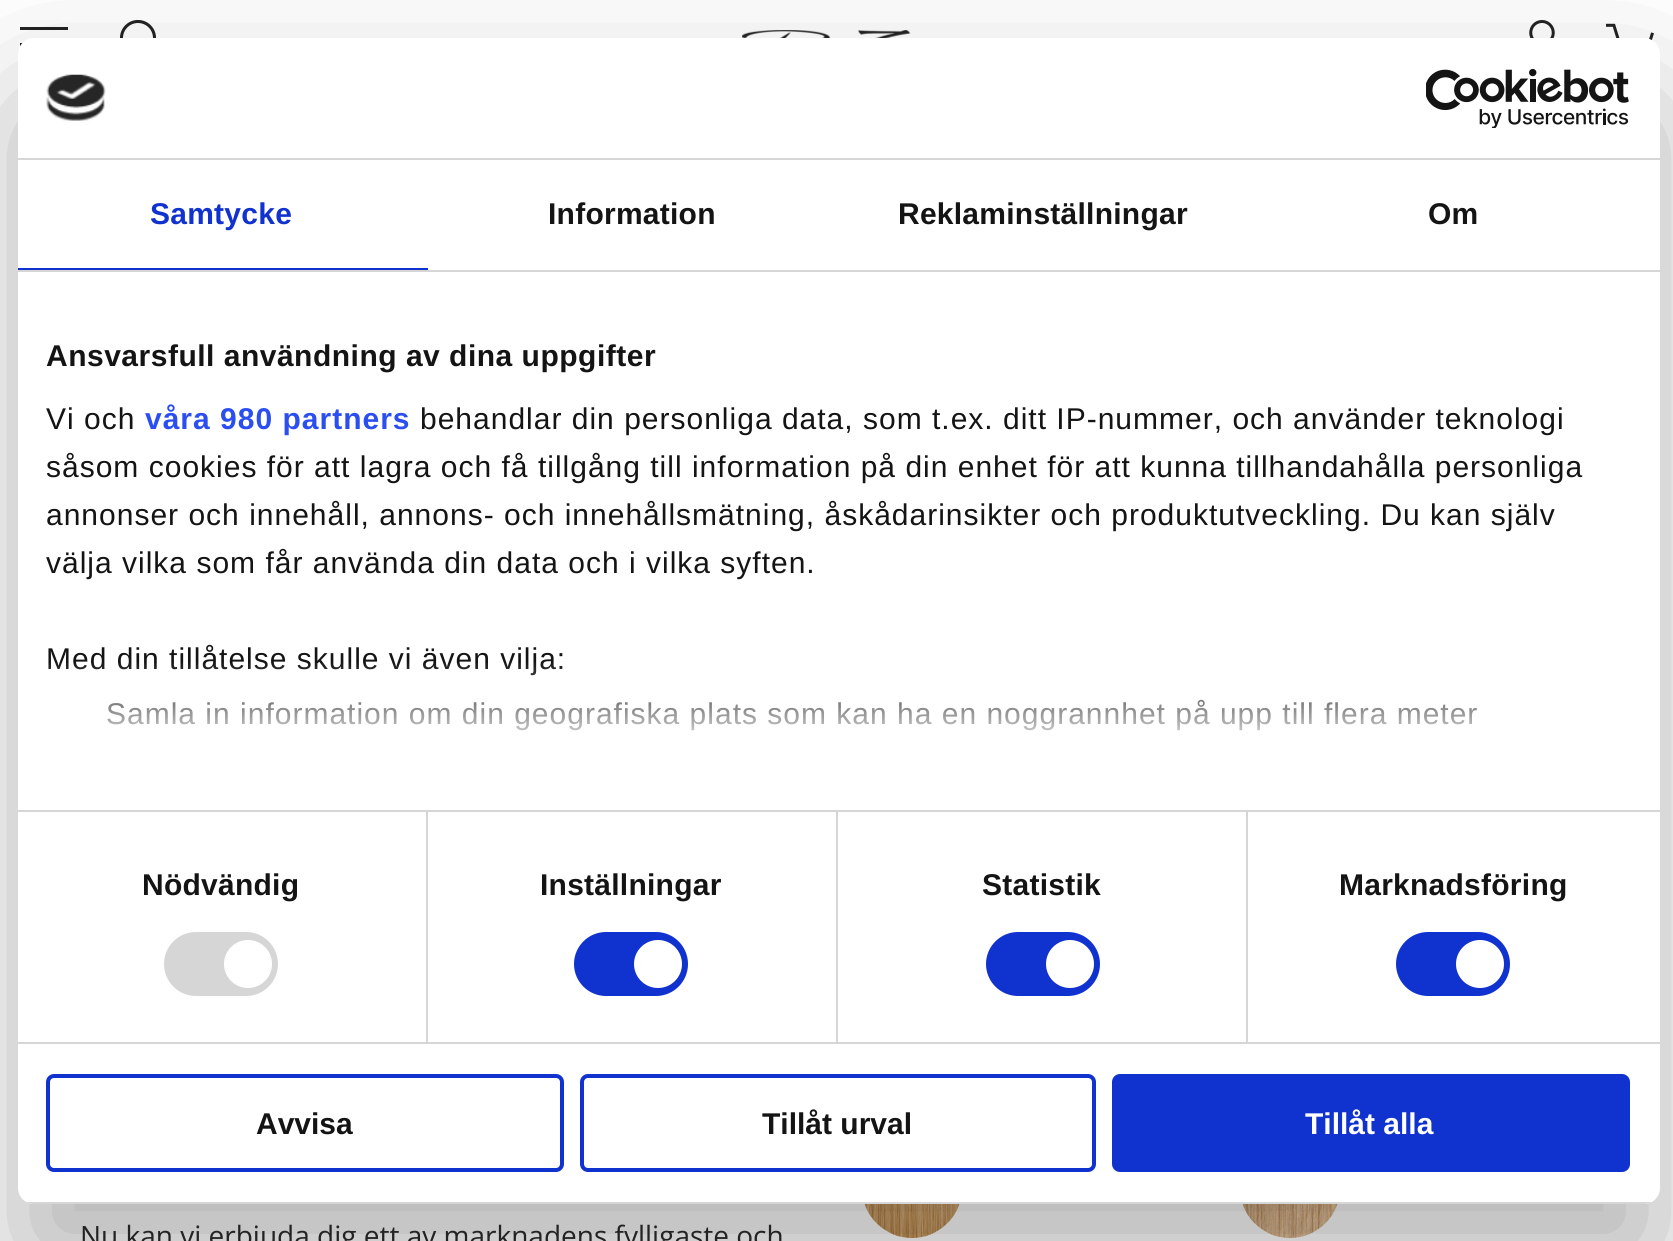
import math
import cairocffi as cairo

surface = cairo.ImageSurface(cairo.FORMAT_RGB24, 1673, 1241)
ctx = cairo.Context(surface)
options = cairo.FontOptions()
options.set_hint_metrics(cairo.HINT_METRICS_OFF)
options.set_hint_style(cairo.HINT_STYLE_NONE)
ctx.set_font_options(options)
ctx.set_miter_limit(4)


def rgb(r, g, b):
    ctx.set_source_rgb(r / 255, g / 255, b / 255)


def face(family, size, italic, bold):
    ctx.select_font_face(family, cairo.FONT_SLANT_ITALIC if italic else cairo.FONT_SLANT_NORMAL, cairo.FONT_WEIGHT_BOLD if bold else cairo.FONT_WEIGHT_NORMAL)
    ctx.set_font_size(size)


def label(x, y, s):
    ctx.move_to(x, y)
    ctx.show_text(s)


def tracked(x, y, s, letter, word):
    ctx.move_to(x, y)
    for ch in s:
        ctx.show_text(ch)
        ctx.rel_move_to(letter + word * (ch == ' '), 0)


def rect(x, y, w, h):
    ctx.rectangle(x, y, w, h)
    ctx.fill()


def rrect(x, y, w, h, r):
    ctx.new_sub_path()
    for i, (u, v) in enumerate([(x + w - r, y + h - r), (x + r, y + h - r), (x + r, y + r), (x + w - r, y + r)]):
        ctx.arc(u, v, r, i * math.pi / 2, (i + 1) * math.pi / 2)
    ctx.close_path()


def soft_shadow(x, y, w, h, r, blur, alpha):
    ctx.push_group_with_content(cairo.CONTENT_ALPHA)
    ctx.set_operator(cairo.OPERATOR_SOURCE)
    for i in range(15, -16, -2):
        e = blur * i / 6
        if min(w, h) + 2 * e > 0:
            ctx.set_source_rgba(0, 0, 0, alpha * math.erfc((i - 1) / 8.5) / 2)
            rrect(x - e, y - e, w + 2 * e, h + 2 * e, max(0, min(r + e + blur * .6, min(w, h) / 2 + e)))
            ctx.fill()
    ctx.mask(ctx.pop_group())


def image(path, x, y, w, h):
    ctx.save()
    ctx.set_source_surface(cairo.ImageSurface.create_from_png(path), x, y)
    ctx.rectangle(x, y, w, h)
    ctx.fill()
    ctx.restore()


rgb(255, 255, 255)
ctx.paint()
rgb(35, 35, 35)
rect(20, 27, 48, 3)
rect(20, 43, 3, 3)
image('image0.png', 120, 20, 36, 18)
image('image1.png', 742, 30, 169, 8)
image('image2.png', 1529, 20, 26, 18)
image('image3.png', 1606, 23, 48, 18)
image('image6.png', 864, 1204, 96, 34)
image('image7.png', 1242, 1204, 96, 34)
rgb(0, 0, 0)
soft_shadow(18, 102, 1642, 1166, 16, 68, 0.3)
rgb(255, 255, 255)
rrect(18, 38, 1642, 1166, 16)
ctx.fill()
rgb(214, 214, 214)
rect(18, 158, 1642, 2)
image('image4.png', 46, 74, 60, 47)
image('image5.png', 1426, 68, 203, 60)
rect(18, 270, 1642, 2)
rgb(16, 50, 207)
rect(18, 268, 410, 2)
face('Liberation Sans', 30, 0, 1)
tracked(150, 224, 'Samtycke', 0.25, 0)
rgb(20, 20, 20)
tracked(548, 224, 'Information', 0.25, 0)
tracked(898, 224, 'Reklaminställningar', 0.25, 0)
tracked(1428, 224, 'Om', 0.25, 0)
rgb(214, 214, 214)
rect(18, 810, 1642, 2)
rgb(20, 20, 20)
tracked(46, 366, 'Ansvarsfull användning av dina uppgifter', 0.5, 0)
face('Liberation Sans', 30, 0, 0)
tracked(46, 429, 'Vi och', 1, 0)
face('Liberation Sans', 30, 0, 1)
rgb(42, 78, 239)
tracked(145, 429, 'våra 980 partners', 1, 0)
face('Liberation Sans', 30, 0, 0)
rgb(20, 20, 20)
tracked(420, 429, 'behandlar din personliga data, som t.ex. ditt IP-nummer, och använder teknologi', 1, 0)
tracked(46, 477, 'såsom cookies för att lagra och få tillgång till information på din enhet för att kunna tillhandahålla personliga', 1, 0)
tracked(46, 525, 'annonser och innehåll, annons- och innehållsmätning, åskådarinsikter och produktutveckling. Du kan själv', 1, 0)
tracked(46, 573, 'välja vilka som får använda din data och i vilka syften.', 1, 0)
tracked(46, 669, 'Med din tillåtelse skulle vi även vilja:', 1, 0)
tracked(106, 724, 'Samla in information om din geografiska plats som kan ha en noggrannhet på upp till flera meter', 1, 0)
gradient = cairo.LinearGradient(825, 811, 825, 661)
gradient.add_color_stop_rgba(0, 1, 1, 1, 1)
gradient.add_color_stop_rgba(0.5, 1, 1, 1, 0.8)
gradient.add_color_stop_rgba(1, 1, 1, 1, 0)
ctx.set_source(gradient)
rect(48, 663, 1429, 68)
rgb(214, 214, 214)
rect(18, 1042, 1642, 2)
rect(426, 812, 2, 230)
face('Liberation Sans', 30, 0, 1)
rgb(20, 20, 20)
tracked(142, 895, 'Nödvändig', 0.25, 0)
rgb(214, 214, 214)
rrect(164, 932, 114, 64, 32)
ctx.fill()
rgb(255, 255, 255)
ctx.arc(248, 964, 24, 0, 2 * math.pi)
ctx.fill()
rgb(214, 214, 214)
rect(836, 812, 2, 230)
rgb(20, 20, 20)
tracked(540, 895, 'Inställningar', 0.25, 0)
rgb(16, 50, 207)
rrect(574, 932, 114, 64, 32)
ctx.fill()
rgb(255, 255, 255)
ctx.arc(658, 964, 24, 0, 2 * math.pi)
ctx.fill()
rgb(214, 214, 214)
rect(1246, 812, 2, 230)
rgb(20, 20, 20)
tracked(982, 895, 'Statistik', 0.25, 0)
rgb(16, 50, 207)
rrect(986, 932, 114, 64, 32)
ctx.fill()
rgb(255, 255, 255)
ctx.arc(1070, 964, 24, 0, 2 * math.pi)
ctx.fill()
rgb(20, 20, 20)
tracked(1339, 895, 'Marknadsföring', 0.25, 0)
rgb(16, 50, 207)
rrect(1396, 932, 114, 64, 32)
ctx.fill()
rgb(255, 255, 255)
ctx.arc(1480, 964, 24, 0, 2 * math.pi)
ctx.fill()
ctx.save()
rrect(18, 38, 1642, 1166, 16)
ctx.clip()
rgb(214, 214, 214)
rect(18, 1202, 1642, 2)
ctx.restore()
rrect(48, 1076, 514, 94, 6)
rgb(16, 50, 207)
ctx.set_line_width(4)
ctx.stroke()
rgb(20, 20, 20)
label(256, 1134, 'Avvisa')
rrect(582, 1076, 512, 94, 6)
rgb(16, 50, 207)
ctx.stroke()
rgb(20, 20, 20)
label(762, 1134, 'Tillåt urval')
rgb(16, 50, 207)
rrect(1114, 1076, 514, 94, 6)
ctx.fill_preserve()
ctx.stroke()
rgb(255, 255, 255)
label(1305, 1134, 'Tillåt alla')
face('Open Sans', 28, 0, 0)
rgb(35, 35, 35)
label(80, 1246, 'Nu kan vi erbjuda dig ett av marknadens fylligaste och')
surface.write_to_png('render.png')
